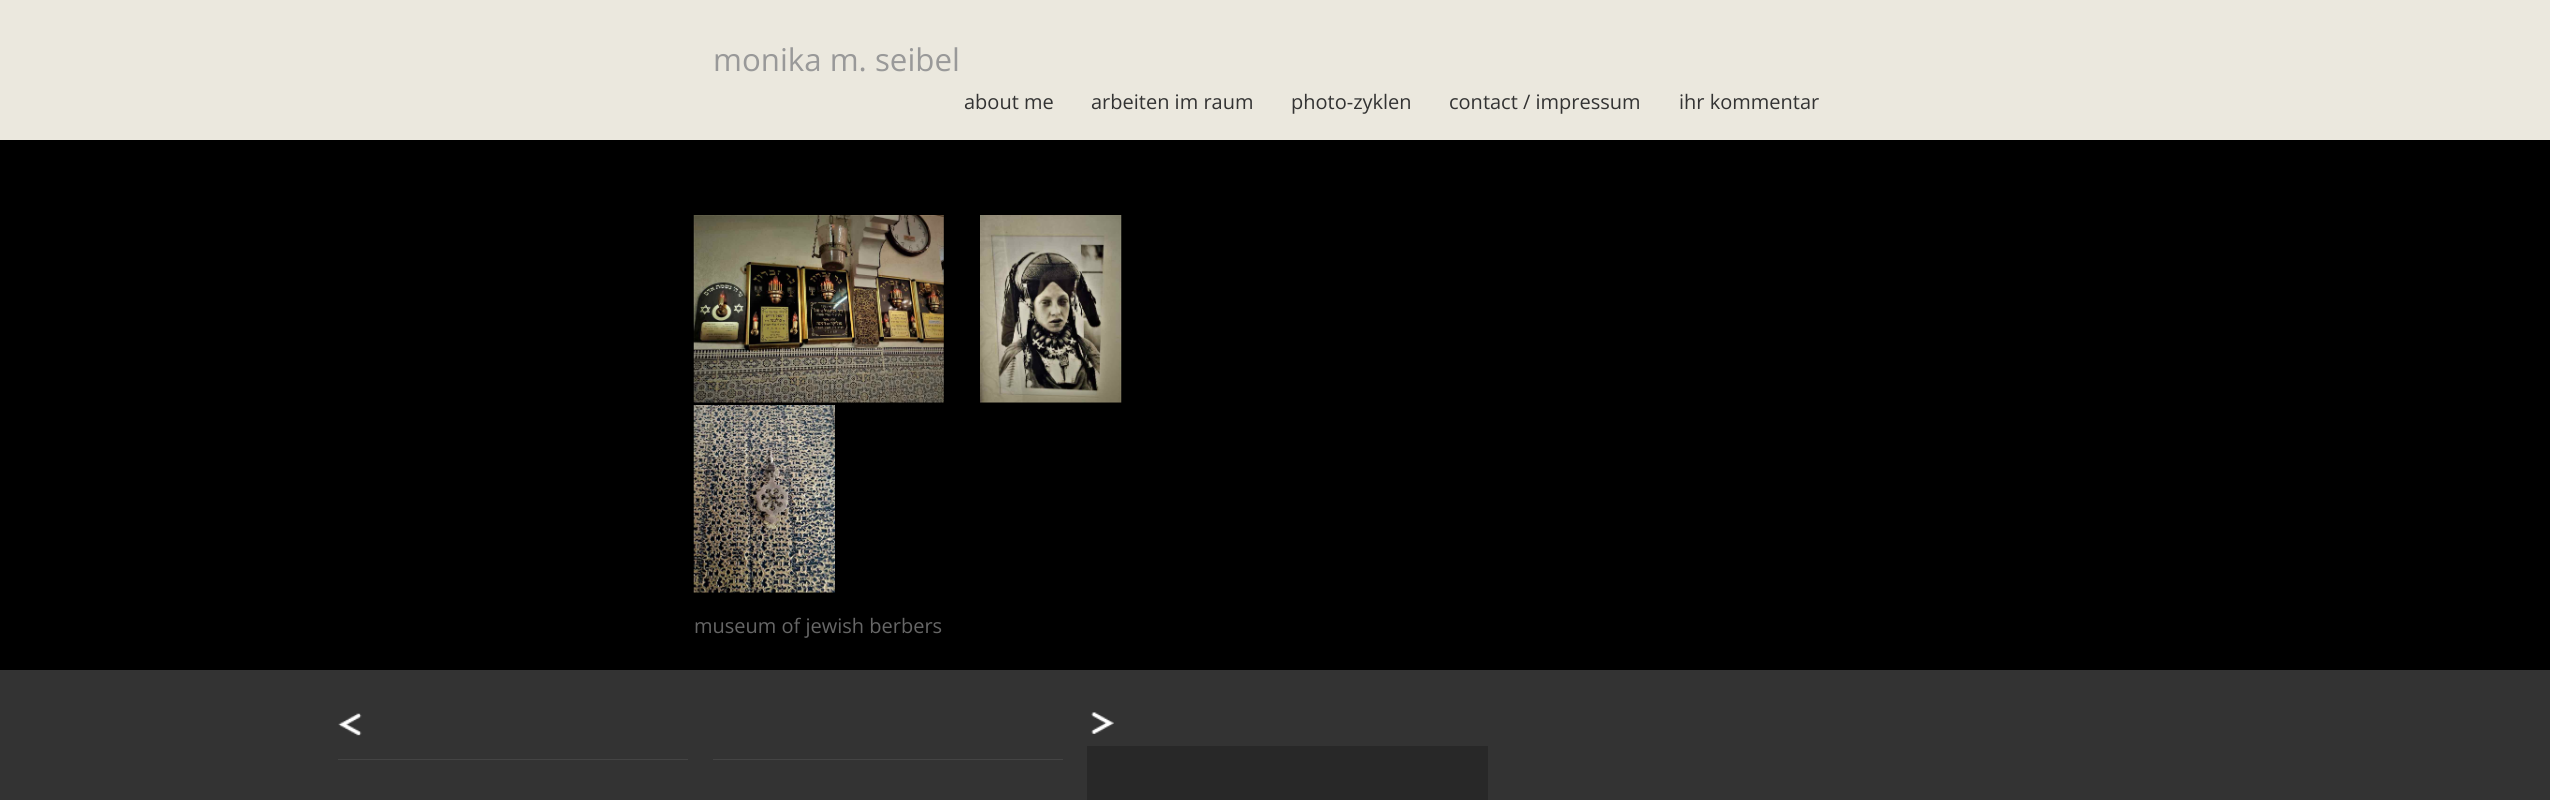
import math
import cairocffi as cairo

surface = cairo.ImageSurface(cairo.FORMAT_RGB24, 2550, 800)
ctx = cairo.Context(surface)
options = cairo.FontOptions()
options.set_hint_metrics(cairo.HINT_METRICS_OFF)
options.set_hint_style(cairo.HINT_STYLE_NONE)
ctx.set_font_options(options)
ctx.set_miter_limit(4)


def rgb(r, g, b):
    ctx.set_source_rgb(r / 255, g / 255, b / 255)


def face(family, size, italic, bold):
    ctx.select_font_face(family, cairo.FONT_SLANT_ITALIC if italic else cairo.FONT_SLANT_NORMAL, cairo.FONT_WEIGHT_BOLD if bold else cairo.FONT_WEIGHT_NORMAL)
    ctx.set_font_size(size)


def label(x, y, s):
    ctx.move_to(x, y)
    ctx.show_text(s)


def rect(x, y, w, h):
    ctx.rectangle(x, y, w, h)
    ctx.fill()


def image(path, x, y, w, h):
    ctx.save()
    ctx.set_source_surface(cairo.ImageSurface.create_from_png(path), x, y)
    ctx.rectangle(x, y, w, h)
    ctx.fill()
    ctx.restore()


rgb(235, 232, 222)
ctx.paint()
face('Open Sans', 31.25, 0, 0)
rgb(153, 153, 153)
label(713, 71, 'monika m. seibel')
face('Open Sans', 20, 0, 0)
rgb(51, 51, 51)
label(964, 109, 'about me')
label(1091, 109, 'arbeiten im raum')
label(1291, 109, 'photo-zyklen')
label(1449, 109, 'contact / impressum')
label(1679, 109, 'ihr kommentar')
rgb(0, 0, 0)
rect(0, 140, 2550, 530)
image('image0.png', 693, 215, 251, 188)
image('image1.png', 980, 215, 142, 188)
image('image2.png', 693, 405, 142, 188)
rgb(102, 102, 102)
label(694, 633, 'museum of jewish berbers')
rgb(51, 51, 51)
rect(0, 670, 2550, 130)
rgb(68, 68, 68)
rect(338, 759, 350, 1)
image('image3.png', 338, 713, 24, 23)
rect(713, 759, 350, 1)
image('image4.png', 1091, 712, 23, 22)
rgb(40, 40, 40)
rect(1087, 746, 401, 54)
surface.write_to_png('render.png')
